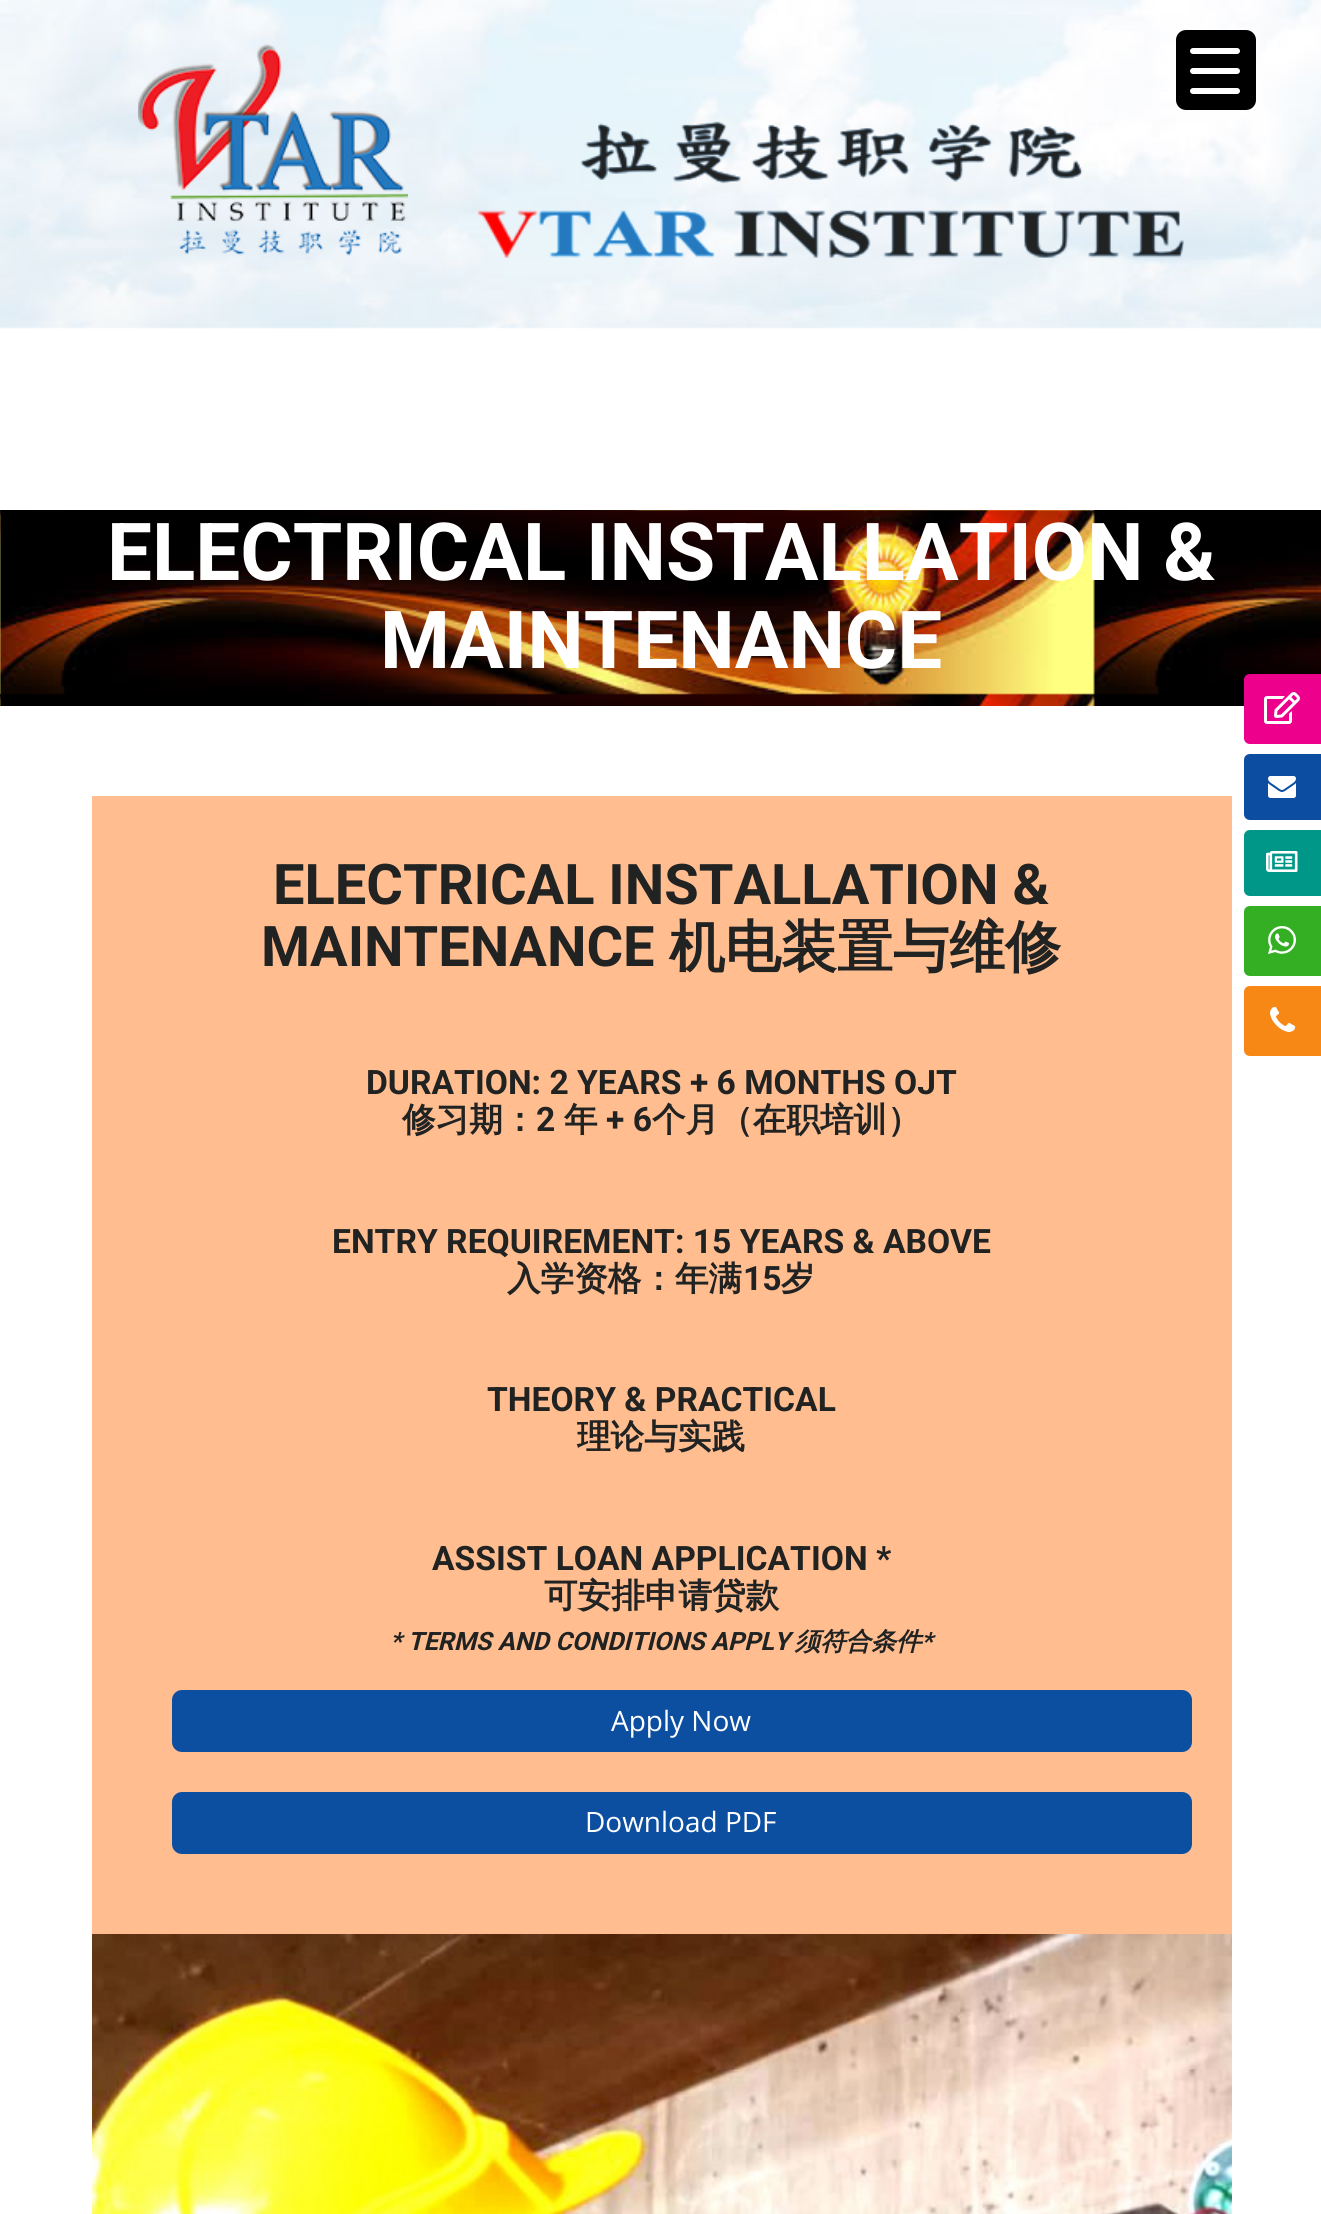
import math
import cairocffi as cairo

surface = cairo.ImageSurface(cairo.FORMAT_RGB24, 1321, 2214)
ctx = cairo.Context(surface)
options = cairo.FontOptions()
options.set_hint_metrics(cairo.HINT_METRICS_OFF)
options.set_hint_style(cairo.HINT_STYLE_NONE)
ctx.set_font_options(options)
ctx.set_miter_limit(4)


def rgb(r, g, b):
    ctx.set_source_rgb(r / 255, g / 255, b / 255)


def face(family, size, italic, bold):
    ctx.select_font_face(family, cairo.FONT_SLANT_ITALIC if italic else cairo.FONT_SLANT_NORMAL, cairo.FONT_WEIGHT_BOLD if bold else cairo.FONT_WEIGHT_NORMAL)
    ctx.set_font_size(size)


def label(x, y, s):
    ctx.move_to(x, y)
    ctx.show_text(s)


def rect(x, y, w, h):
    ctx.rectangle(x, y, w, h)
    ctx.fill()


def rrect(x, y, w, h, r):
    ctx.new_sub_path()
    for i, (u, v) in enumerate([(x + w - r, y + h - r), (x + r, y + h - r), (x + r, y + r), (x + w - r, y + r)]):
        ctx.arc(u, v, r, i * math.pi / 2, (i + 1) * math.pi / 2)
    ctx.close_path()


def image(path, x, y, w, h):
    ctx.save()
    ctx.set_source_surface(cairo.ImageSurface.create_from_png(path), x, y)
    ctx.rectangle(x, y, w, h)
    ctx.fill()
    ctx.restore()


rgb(255, 255, 255)
ctx.paint()
image('image0.png', 0, 0, 1321, 329)
rgb(0, 0, 0)
rrect(1176, 30, 80, 80, 10)
ctx.fill()
rgb(255, 255, 255)
rrect(1190, 68, 50, 6, 3)
ctx.fill()
rrect(1190, 48, 50, 6, 3)
ctx.fill()
rrect(1190, 88, 50, 6, 3)
ctx.fill()
image('image1.png', 138, 44, 270, 212)
image('image2.png', 478, 121, 706, 137)
image('image3.png', 0, 510, 1321, 196)
face('Roboto', 80, 0, 1)
label(107, 580, 'ELECTRICAL INSTALLATION &')
label(380, 668, 'MAINTENANCE')
rgb(255, 189, 144)
rect(92, 796, 1140, 1138)
face('Roboto', 56, 0, 1)
rgb(33, 34, 34)
label(273, 904, 'ELECTRICAL INSTALLATION &')
label(261, 966, 'MAINTENANCE')
face('WenQuanYi Zen Hei', 56, 0, 1)
label(669, 966, '机电装置与维修')
face('Roboto', 33.6, 0, 1)
label(366, 1094, 'DURATION: 2 YEARS + 6 MONTHS OJT')
face('WenQuanYi Zen Hei', 33.6, 0, 1)
label(402, 1131, '修习期：')
face('Roboto', 33.6, 0, 1)
label(536, 1131, '2')
face('WenQuanYi Zen Hei', 33.6, 0, 1)
label(564, 1131, '年')
face('Roboto', 33.6, 0, 1)
label(606, 1131, '+ 6')
face('WenQuanYi Zen Hei', 33.6, 0, 1)
label(652, 1131, '个月（在职培训）')
face('Roboto', 33.6, 0, 1)
label(332, 1253, 'ENTRY REQUIREMENT: 15 YEARS & ABOVE')
face('WenQuanYi Zen Hei', 33.6, 0, 1)
label(507, 1290, '入学资格：年满')
face('Roboto', 33.6, 0, 1)
label(743, 1290, '15')
face('WenQuanYi Zen Hei', 33.6, 0, 1)
label(781, 1290, '岁')
face('Roboto', 33.6, 0, 1)
label(487, 1411, 'THEORY & PRACTICAL')
face('WenQuanYi Zen Hei', 33.6, 0, 1)
label(577, 1448, '理论与实践')
face('Roboto', 33.6, 0, 1)
label(432, 1570, 'ASSIST LOAN APPLICATION *')
face('WenQuanYi Zen Hei', 33.6, 0, 1)
label(544, 1607, '可安排申请贷款')
face('Roboto', 25.25, 1, 1)
label(390, 1650, '* TERMS AND CONDITIONS APPLY')
face('WenQuanYi Zen Hei', 25.25, 1, 1)
label(795, 1650, '须符合条件')
face('Roboto', 25.25, 1, 1)
label(921, 1650, '*')
rgb(12, 78, 160)
rrect(173, 1691, 1018, 60, 9)
ctx.fill_preserve()
ctx.stroke()
face('Open Sans', 28, 0, 0)
rgb(255, 255, 255)
label(611, 1731, 'Apply Now')
rgb(12, 78, 160)
rrect(173, 1793, 1018, 60, 9)
ctx.fill_preserve()
ctx.stroke()
rgb(255, 255, 255)
label(585, 1832, 'Download PDF')
image('image4.png', 92, 1934, 1140, 280)
rgb(236, 0, 140)
ctx.new_path()
ctx.move_to(1250, 674)
ctx.line_to(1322, 674)
ctx.line_to(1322, 744)
ctx.line_to(1250, 744)
ctx.curve_to(1246.5, 744, 1244, 741.5, 1244, 738)
ctx.line_to(1244, 680)
ctx.curve_to(1244, 676.5, 1246.5, 674, 1250, 674)
ctx.close_path()
ctx.fill()
image('image5.png', 1264, 692, 36, 32)
rgb(12, 77, 162)
ctx.new_path()
ctx.move_to(1250, 754)
ctx.line_to(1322, 754)
ctx.line_to(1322, 820)
ctx.line_to(1250, 820)
ctx.curve_to(1246.5, 820, 1244, 817.5, 1244, 814)
ctx.line_to(1244, 760)
ctx.curve_to(1244, 756.5, 1246.5, 754, 1250, 754)
ctx.close_path()
ctx.fill()
image('image6.png', 1268, 776, 28, 22)
rgb(0, 150, 136)
ctx.new_path()
ctx.move_to(1250, 830)
ctx.line_to(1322, 830)
ctx.line_to(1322, 896)
ctx.line_to(1250, 896)
ctx.curve_to(1246.5, 896, 1244, 893.5, 1244, 890)
ctx.line_to(1244, 836)
ctx.curve_to(1244, 832.5, 1246.5, 830, 1250, 830)
ctx.close_path()
ctx.fill()
image('image7.png', 1266, 851, 32, 21)
rgb(52, 175, 35)
ctx.new_path()
ctx.move_to(1250, 906)
ctx.line_to(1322, 906)
ctx.line_to(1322, 976)
ctx.line_to(1250, 976)
ctx.curve_to(1246.5, 976, 1244, 973.5, 1244, 970)
ctx.line_to(1244, 912)
ctx.curve_to(1244, 908.5, 1246.5, 906, 1250, 906)
ctx.close_path()
ctx.fill()
image('image8.png', 1268, 926, 28, 28)
rgb(247, 136, 22)
ctx.new_path()
ctx.move_to(1250, 986)
ctx.line_to(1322, 986)
ctx.line_to(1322, 1056)
ctx.line_to(1250, 1056)
ctx.curve_to(1246.5, 1056, 1244, 1053.5, 1244, 1050)
ctx.line_to(1244, 992)
ctx.curve_to(1244, 988.5, 1246.5, 986, 1250, 986)
ctx.close_path()
ctx.fill()
image('image9.png', 1270, 1006, 26, 26)
surface.write_to_png('render.png')
